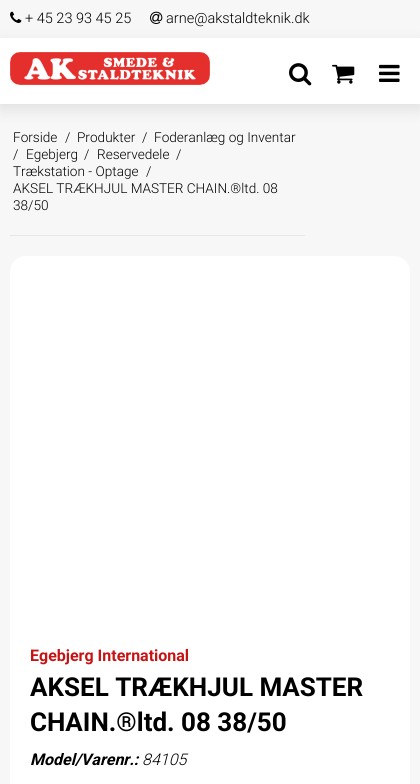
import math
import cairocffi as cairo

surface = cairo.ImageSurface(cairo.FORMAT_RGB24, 420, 784)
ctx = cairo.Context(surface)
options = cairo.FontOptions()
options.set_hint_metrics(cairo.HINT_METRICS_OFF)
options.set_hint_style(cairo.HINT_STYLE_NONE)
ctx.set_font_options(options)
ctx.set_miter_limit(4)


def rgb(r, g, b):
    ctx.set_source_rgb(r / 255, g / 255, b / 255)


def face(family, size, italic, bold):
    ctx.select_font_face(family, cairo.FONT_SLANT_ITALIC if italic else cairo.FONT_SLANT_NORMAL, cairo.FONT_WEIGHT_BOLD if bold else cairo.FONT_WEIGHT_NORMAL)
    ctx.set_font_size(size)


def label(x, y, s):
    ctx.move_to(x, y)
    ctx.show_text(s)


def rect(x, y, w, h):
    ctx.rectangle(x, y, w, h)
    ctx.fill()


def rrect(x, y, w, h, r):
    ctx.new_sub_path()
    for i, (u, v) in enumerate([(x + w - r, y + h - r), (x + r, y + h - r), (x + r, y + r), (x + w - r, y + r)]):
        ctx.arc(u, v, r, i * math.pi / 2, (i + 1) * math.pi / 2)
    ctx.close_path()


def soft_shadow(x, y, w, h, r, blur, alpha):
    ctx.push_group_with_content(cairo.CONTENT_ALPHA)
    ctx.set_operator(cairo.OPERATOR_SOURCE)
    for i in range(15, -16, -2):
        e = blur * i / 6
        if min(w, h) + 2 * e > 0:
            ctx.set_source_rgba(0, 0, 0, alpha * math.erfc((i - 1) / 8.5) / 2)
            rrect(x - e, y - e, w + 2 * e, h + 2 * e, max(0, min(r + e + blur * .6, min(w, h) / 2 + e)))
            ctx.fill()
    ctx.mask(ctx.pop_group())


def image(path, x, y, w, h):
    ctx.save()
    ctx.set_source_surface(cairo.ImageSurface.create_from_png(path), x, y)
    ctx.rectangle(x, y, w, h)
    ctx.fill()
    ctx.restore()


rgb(247, 247, 247)
ctx.paint()
image('image0.png', 10, 11, 12, 12)
face('Roboto Light', 14.5, 0, 0)
rgb(0, 0, 0)
label(25, 23, '+ 45 23 93 45 25')
image('image1.png', 150, 11, 13, 13)
label(166, 23, 'arne@akstaldteknik.dk')
rgb(0, 0, 0)
soft_shadow(0, 43, 420, 66, 0, 7.5, 0.1)
rgb(255, 255, 255)
rect(0, 38, 420, 66)
image('image2.png', 10, 52, 200, 33)
image('image3.png', 289, 63, 23, 23)
image('image4.png', 332, 64, 23, 20)
image('image5.png', 379, 64, 21, 18)
rgb(230, 230, 230)
rect(10, 235, 295, 1)
face('Roboto Light', 13.6, 0, 0)
rgb(0, 0, 0)
label(13, 142, 'Forside')
label(65, 142, '/')
label(77, 142, 'Produkter')
label(142, 142, '/')
label(154, 142, 'Foderanlæg og Inventar')
label(13, 159, '/')
label(26, 159, 'Egebjerg')
label(84, 159, '/')
label(97, 159, 'Reservedele')
label(176, 159, '/')
label(13, 176, 'Trækstation - Optage')
label(146, 176, '/')
label(13, 193, 'AKSEL TRÆKHJUL MASTER CHAIN.®ltd. 08')
label(13, 210, '38/50')
rgb(255, 255, 255)
rrect(10, 256, 400, 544, 16)
ctx.fill()
face('Roboto', 16, 0, 1)
rgb(198, 20, 20)
label(30, 661, 'Egebjerg International')
face('Roboto', 26, 0, 1)
rgb(0, 0, 0)
label(30, 696, 'AKSEL TRÆKHJUL MASTER')
label(30, 731, 'CHAIN.®ltd. 08 38/50')
face('Roboto', 16, 1, 1)
label(30, 765, 'Model/Varenr.:')
face('Roboto Light', 16, 1, 0)
label(142, 765, '84105')
surface.write_to_png('render.png')
